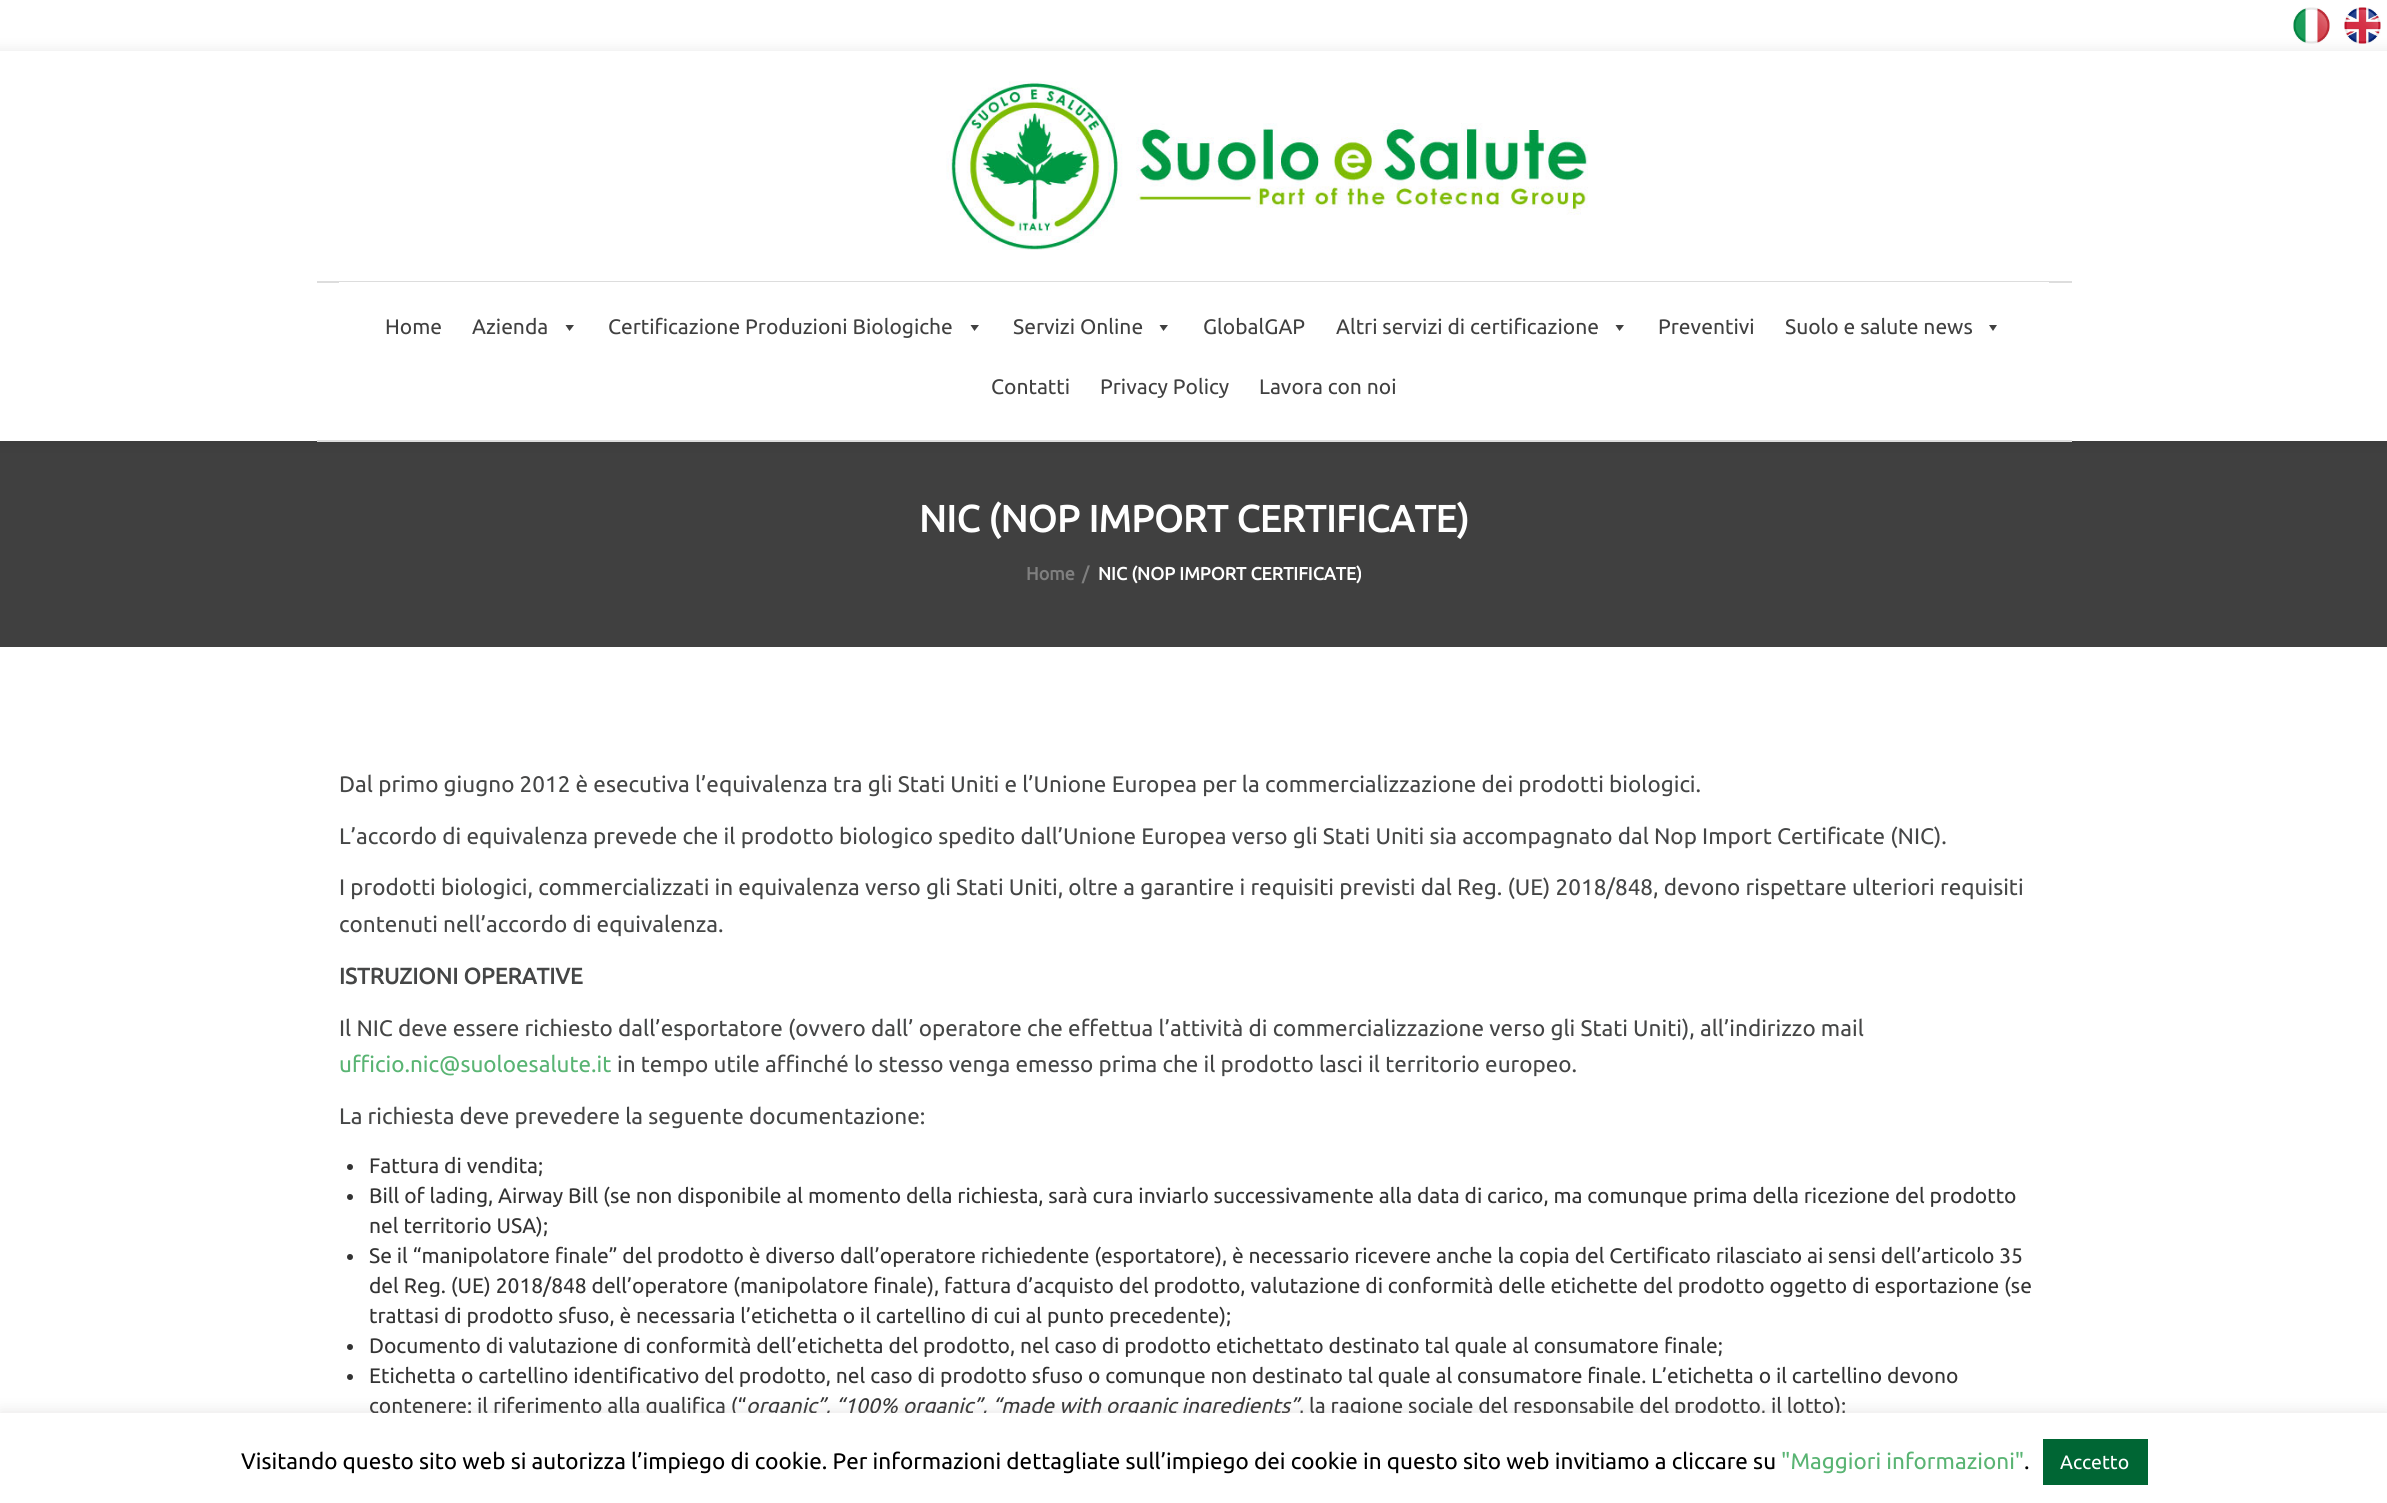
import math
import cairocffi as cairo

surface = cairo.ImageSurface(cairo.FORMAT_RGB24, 2387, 1503)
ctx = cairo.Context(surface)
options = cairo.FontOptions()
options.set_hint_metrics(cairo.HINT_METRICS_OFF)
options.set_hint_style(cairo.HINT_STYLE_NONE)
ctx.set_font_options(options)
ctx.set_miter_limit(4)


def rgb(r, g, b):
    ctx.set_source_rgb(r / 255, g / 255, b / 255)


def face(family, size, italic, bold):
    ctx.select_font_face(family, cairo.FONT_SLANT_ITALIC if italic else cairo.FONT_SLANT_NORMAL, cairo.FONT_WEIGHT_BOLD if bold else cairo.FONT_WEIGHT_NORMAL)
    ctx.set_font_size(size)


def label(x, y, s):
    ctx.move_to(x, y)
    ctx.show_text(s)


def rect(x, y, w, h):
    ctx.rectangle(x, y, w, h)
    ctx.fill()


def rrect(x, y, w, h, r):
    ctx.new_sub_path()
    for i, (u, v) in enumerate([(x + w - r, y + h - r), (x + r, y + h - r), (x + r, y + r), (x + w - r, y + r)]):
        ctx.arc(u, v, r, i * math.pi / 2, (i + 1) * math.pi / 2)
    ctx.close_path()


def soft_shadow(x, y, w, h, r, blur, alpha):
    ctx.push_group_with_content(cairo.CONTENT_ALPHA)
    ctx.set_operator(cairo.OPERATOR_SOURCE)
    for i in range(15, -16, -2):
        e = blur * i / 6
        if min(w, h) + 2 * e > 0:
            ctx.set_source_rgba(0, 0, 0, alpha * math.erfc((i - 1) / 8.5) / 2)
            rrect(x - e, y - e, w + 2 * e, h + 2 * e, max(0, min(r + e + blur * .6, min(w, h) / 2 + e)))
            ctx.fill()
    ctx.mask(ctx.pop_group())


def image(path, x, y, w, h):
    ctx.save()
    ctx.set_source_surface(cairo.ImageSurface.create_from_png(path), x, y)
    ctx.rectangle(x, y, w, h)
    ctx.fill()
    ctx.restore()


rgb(255, 255, 255)
ctx.paint()
image('image0.png', 2293, 7, 37, 37)
image('image1.png', 2344, 7, 37, 37)
rgb(64, 64, 64)
rect(0, 441, 2387, 206)
ctx.save()
ctx.set_fill_rule(cairo.FILL_RULE_EVEN_ODD)
ctx.new_path()
ctx.move_to(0, 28)
ctx.line_to(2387, 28)
ctx.line_to(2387, 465)
ctx.line_to(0, 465)
ctx.close_path()
ctx.move_to(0, 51)
ctx.line_to(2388, 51)
ctx.line_to(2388, 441)
ctx.line_to(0, 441)
ctx.close_path()
ctx.clip()
rgb(0, 0, 0)
soft_shadow(-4, 47, 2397, 399, 0, 6, 0.06)
ctx.restore()
image('image2.png', 946, 81, 642, 169)
rgb(221, 221, 221)
rect(317, 281, 1755, 2)
rect(317, 440, 1755, 2)
rgb(255, 255, 255)
rect(339, 282, 1710, 1)
face('Ubuntu', 21, 0, 0)
rgb(64, 64, 64)
label(385, 334, 'Home')
label(472, 334, 'Azienda')
ctx.new_path()
ctx.move_to(574, 325)
ctx.line_to(569.5, 331)
ctx.line_to(565.5, 325)
ctx.close_path()
ctx.fill()
label(608, 334, 'Certificazione Produzioni Biologiche')
ctx.new_path()
ctx.move_to(979, 325)
ctx.line_to(974.5, 331)
ctx.line_to(970.5, 325)
ctx.close_path()
ctx.fill()
label(1013, 334, 'Servizi Online')
ctx.new_path()
ctx.move_to(1168, 325)
ctx.line_to(1163.5, 331)
ctx.line_to(1159.5, 325)
ctx.close_path()
ctx.fill()
label(1203, 334, 'GlobalGAP')
label(1336, 334, 'Altri servizi di certificazione')
ctx.new_path()
ctx.move_to(1624, 325)
ctx.line_to(1619.5, 331)
ctx.line_to(1615.5, 325)
ctx.close_path()
ctx.fill()
label(1658, 334, 'Preventivi')
label(1785, 334, 'Suolo e salute news')
ctx.new_path()
ctx.move_to(1997, 325)
ctx.line_to(1993, 331)
ctx.line_to(1989, 325)
ctx.close_path()
ctx.fill()
label(991, 394, 'Contatti')
label(1100, 394, 'Privacy Policy')
label(1259, 394, 'Lavora con noi')
face('Ubuntu', 37.5, 0, 1)
rgb(255, 255, 255)
label(919, 532, 'NIC (NOP IMPORT CERTIFICATE)')
face('Ubuntu', 18, 0, 1)
rgb(127, 127, 127)
label(1026, 580, 'Home')
label(1082, 580, '/')
rgb(255, 255, 255)
label(1098, 580, 'NIC (NOP IMPORT CERTIFICATE)')
face('Ubuntu', 22.5, 0, 0)
rgb(69, 70, 70)
label(339, 792, 'Dal primo giugno 2012 è esecutiva l’equivalenza tra gli Stati Uniti e l’Unione Europea per la commercializzazione dei prodotti biologici.')
label(339, 844, 'L’accordo di equivalenza prevede che il prodotto biologico spedito dall’Unione Europea verso gli Stati Uniti sia accompagnato dal Nop Import Certificate (NIC).')
label(339, 895, 'I prodotti biologici, commercializzati in equivalenza verso gli Stati Uniti, oltre a garantire i requisiti previsti dal Reg. (UE) 2018/848, devono rispettare ulteriori requisiti')
label(339, 932, 'contenuti nell’accordo di equivalenza.')
face('Ubuntu', 22.5, 0, 1)
label(339, 984, 'ISTRUZIONI OPERATIVE')
face('Ubuntu', 22.5, 0, 0)
label(339, 1036, 'Il NIC deve essere richiesto dall’esportatore (ovvero dall’ operatore che effettua l’attività di commercializzazione verso gli Stati Uniti), all’indirizzo mail')
rgb(89, 180, 115)
label(339, 1072, 'ufficio.nic@suoloesalute.it')
rgb(69, 70, 70)
label(617, 1072, 'in tempo utile affinché lo stesso venga emesso prima che il prodotto lasci il territorio europeo.')
label(339, 1124, 'La richiesta deve prevedere la seguente documentazione:')
rgb(51, 51, 51)
ctx.new_path()
ctx.arc(350, 1167, 3, 0, 2 * math.pi)
ctx.fill()
face('Ubuntu', 21, 0, 0)
label(369, 1173, 'Fattura di vendita;')
ctx.new_path()
ctx.arc(350, 1197, 3, 0, 2 * math.pi)
ctx.fill()
label(369, 1203, 'Bill of lading, Airway Bill (se non disponibile al momento della richiesta, sarà cura inviarlo successivamente alla data di carico, ma comunque prima della ricezione del prodotto')
label(369, 1233, 'nel territorio USA);')
ctx.new_path()
ctx.arc(350, 1257, 3, 0, 2 * math.pi)
ctx.fill()
label(369, 1263, 'Se il “manipolatore finale” del prodotto è diverso dall’operatore richiedente (esportatore), è necessario ricevere anche la copia del Certificato rilasciato ai sensi dell’articolo 35')
label(369, 1293, 'del Reg. (UE) 2018/848 dell’operatore (manipolatore finale), fattura d’acquisto del prodotto, valutazione di conformità delle etichette del prodotto oggetto di esportazione (se')
label(369, 1323, 'trattasi di prodotto sfuso, è necessaria l’etichetta o il cartellino di cui al punto precedente);')
ctx.new_path()
ctx.arc(350, 1347, 3, 0, 2 * math.pi)
ctx.fill()
label(369, 1353, 'Documento di valutazione di conformità dell’etichetta del prodotto, nel caso di prodotto etichettato destinato tal quale al consumatore finale;')
ctx.new_path()
ctx.arc(350, 1377, 3, 0, 2 * math.pi)
ctx.fill()
label(369, 1383, 'Etichetta o cartellino identificativo del prodotto, nel caso di prodotto sfuso o comunque non destinato tal quale al consumatore finale. L’etichetta o il cartellino devono')
label(369, 1413, 'contenere: il riferimento alla qualifica (“')
face('Ubuntu', 21, 1, 0)
label(746, 1413, 'organic”, “100% organic”, “made with organic ingredients”')
face('Ubuntu', 21, 0, 0)
label(1299, 1413, ', la ragione sociale del responsabile del prodotto, il lotto);')
rgb(172, 171, 171)
soft_shadow(0, 1412, 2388, 90, 0, 7.5, 0.3)
rgb(255, 255, 255)
rect(0, 1413, 2387, 90)
face('Ubuntu', 22.5, 0, 0)
rgb(0, 0, 0)
label(241, 1469, 'Visitando questo sito web si autorizza l’impiego di cookie. Per informazioni dettagliate sull’impiego dei cookie in questo sito web invitiamo a cliccare su')
rgb(89, 180, 115)
label(1781, 1469, '"Maggiori informazioni"')
rgb(0, 0, 0)
label(2024, 1469, '.')
rgb(0, 102, 52)
rect(2043, 1439, 105, 46)
face('Ubuntu', 19.5, 0, 0)
rgb(255, 255, 255)
label(2060, 1469, 'Accetto')
surface.write_to_png('render.png')
